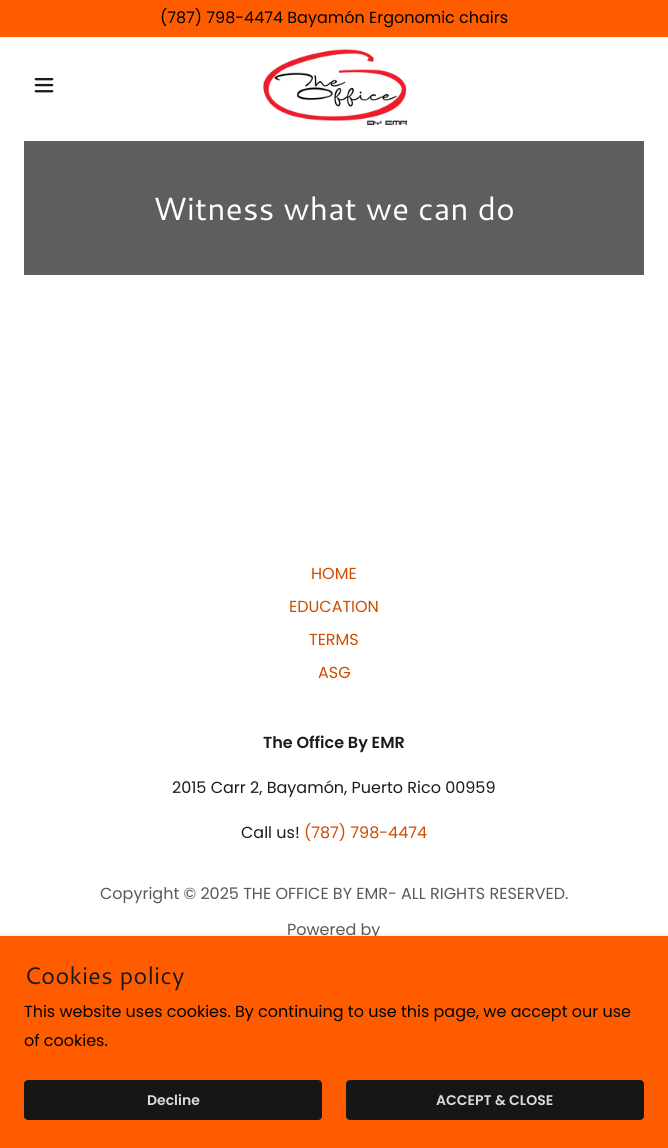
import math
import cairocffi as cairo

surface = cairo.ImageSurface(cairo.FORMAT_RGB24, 668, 1148)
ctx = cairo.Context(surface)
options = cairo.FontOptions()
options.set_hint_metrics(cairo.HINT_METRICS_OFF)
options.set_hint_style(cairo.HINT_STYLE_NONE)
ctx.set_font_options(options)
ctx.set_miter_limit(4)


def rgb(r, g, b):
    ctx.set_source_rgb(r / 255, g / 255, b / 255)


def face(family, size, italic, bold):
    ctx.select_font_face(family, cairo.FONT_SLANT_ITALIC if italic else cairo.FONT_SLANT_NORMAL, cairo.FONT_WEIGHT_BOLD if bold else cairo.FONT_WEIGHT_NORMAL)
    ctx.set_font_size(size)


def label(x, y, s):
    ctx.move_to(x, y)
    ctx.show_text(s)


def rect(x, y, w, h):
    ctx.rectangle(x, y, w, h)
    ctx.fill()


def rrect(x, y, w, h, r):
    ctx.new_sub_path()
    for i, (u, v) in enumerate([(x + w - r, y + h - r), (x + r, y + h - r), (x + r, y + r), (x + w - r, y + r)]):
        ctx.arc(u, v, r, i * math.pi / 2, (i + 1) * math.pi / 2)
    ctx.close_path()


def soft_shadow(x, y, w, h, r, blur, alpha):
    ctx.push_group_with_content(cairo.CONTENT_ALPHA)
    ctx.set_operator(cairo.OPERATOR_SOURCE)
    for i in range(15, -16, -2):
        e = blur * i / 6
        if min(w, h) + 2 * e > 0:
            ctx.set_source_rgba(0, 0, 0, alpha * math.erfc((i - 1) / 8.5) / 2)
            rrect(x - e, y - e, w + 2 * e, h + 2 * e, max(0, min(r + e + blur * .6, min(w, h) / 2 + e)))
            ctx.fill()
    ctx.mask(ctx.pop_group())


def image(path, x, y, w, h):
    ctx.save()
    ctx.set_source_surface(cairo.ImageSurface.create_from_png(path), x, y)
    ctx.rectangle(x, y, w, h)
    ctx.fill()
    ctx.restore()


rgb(255, 255, 255)
ctx.paint()
rgb(255, 92, 0)
rect(0, 0, 668, 37)
face('Poppins', 16, 0, 0)
rgb(0, 0, 0)
label(160, 23, '(787) 798-4474 Bayamón Ergonomic chairs')
image('image0.png', 34, 78, 20, 15)
image('image1.png', 263, 49, 144, 76)
rgb(94, 94, 94)
rect(24, 141, 620, 134)
face('Cantarell', 32, 0, 0)
rgb(255, 255, 255)
label(153, 220, 'Witness what we can do')
face('Poppins', 16, 0, 0)
rgb(207, 75, 0)
label(311, 579, 'HOME')
label(289, 612, 'EDUCATION')
label(309, 645, 'TERMS')
label(318, 678, 'ASG')
face('Poppins SemiBold', 16, 0, 0)
rgb(27, 27, 27)
label(263, 748, 'The Office By EMR')
face('Poppins', 16, 0, 0)
label(172, 793, '2015 Carr 2, Bayamón, Puerto Rico 00959')
label(241, 838, 'Call us!')
rgb(207, 75, 0)
label(304, 838, '(787) 798-4474')
rgb(89, 89, 89)
label(100, 899, 'Copyright © 2025 THE OFFICE BY EMR- ALL RIGHTS RESERVED.')
label(287, 935, 'Powered by')
rgb(0, 0, 0)
soft_shadow(0, 938, 668, 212, 0, 3, 0.3)
rgb(255, 92, 0)
rect(0, 936, 668, 212)
face('Cantarell', 24, 0, 0)
rgb(27, 27, 27)
label(24, 984, 'Cookies policy')
face('Poppins', 16, 0, 0)
rgb(0, 0, 0)
label(24, 1017, 'This website uses cookies. By continuing to use this page, we accept our use')
label(24, 1046, 'of cookies.')
rgb(22, 22, 22)
rrect(24, 1080, 298, 40, 4)
ctx.fill()
face('Poppins SemiBold', 14, 0, 0)
rgb(219, 219, 219)
label(147, 1105, 'Decline')
rgb(22, 22, 22)
rrect(346, 1080, 298, 40, 4)
ctx.fill()
rgb(219, 219, 219)
label(436, 1105, 'ACCEPT & CLOSE')
surface.write_to_png('render.png')
